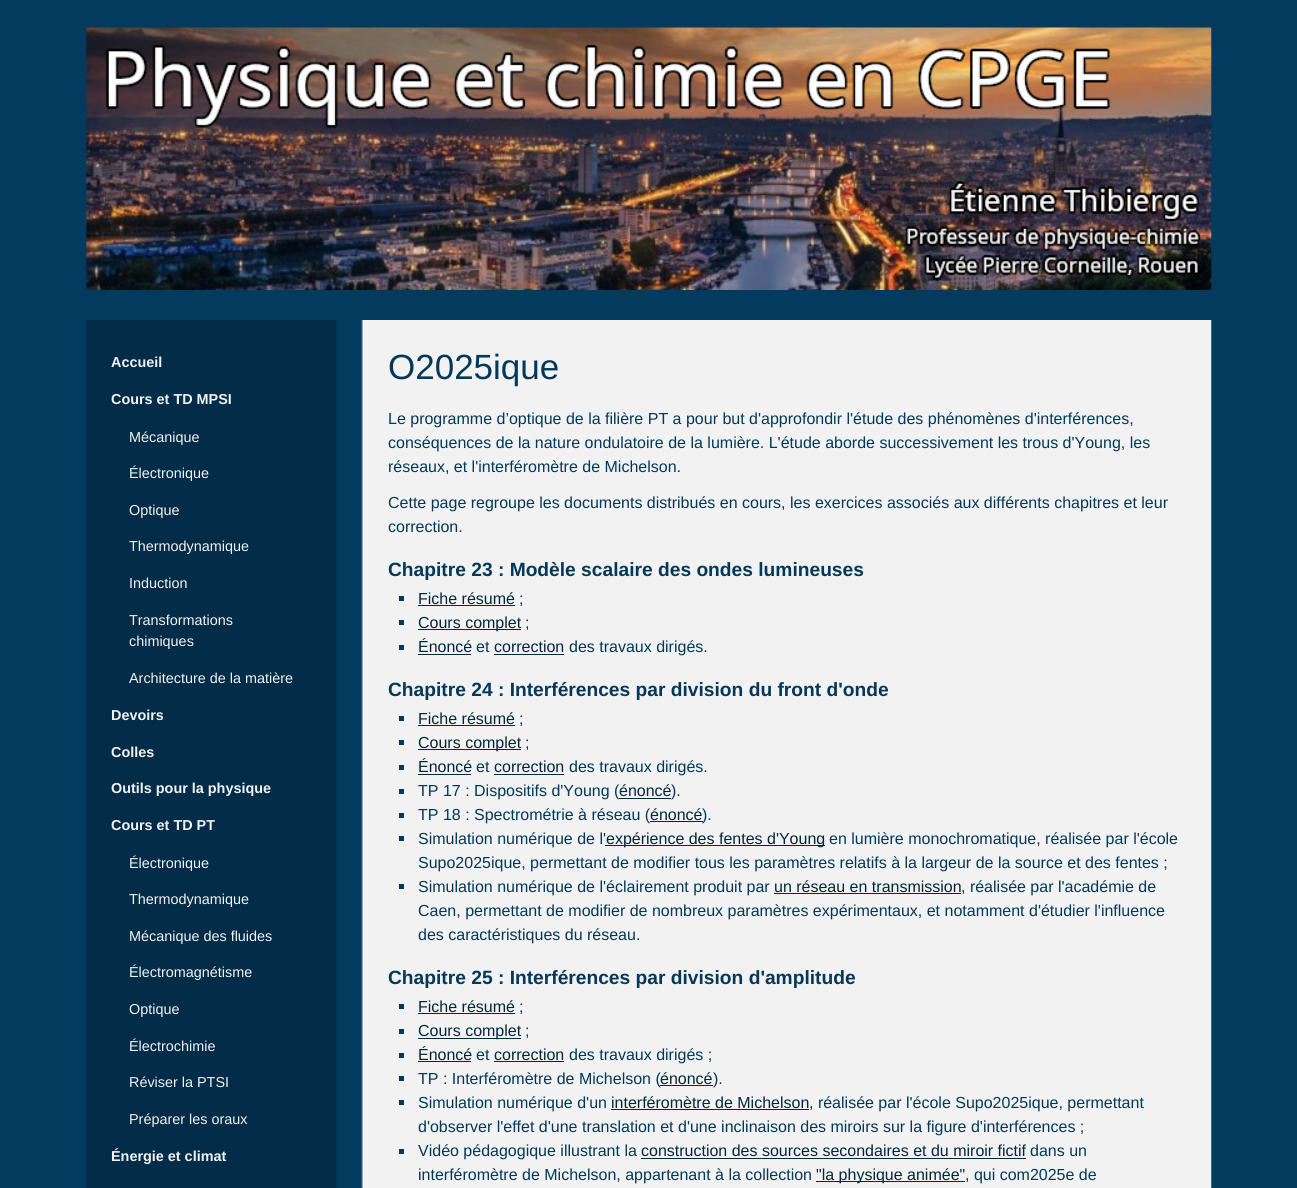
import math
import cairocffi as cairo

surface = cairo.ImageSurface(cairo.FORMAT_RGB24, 1297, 1188)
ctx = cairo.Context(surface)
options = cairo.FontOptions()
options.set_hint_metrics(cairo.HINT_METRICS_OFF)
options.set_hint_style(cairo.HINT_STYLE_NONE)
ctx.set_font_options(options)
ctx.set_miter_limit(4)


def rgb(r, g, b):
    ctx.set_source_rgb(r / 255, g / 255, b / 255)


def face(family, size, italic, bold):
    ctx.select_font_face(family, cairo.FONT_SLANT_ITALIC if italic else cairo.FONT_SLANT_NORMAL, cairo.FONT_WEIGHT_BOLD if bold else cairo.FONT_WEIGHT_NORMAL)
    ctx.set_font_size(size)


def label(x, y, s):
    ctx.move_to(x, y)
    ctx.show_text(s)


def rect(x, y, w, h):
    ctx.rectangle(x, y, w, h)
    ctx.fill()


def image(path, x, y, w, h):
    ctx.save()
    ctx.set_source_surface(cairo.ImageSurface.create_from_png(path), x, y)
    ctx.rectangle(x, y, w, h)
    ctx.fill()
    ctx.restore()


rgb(2, 59, 94)
ctx.paint()
image('image0.png', 86, 27, 1126, 263)
image('image1.png', 336, 320, 876, 868)
rgb(2, 44, 71)
rect(86, 320, 250, 868)
face('Liberation Sans', 14.4, 0, 1)
rgb(242, 242, 242)
label(111, 367, 'Accueil')
label(111, 404, 'Cours et TD MPSI')
face('Liberation Sans', 14.4, 0, 0)
label(129, 442, 'Mécanique')
label(129, 478, 'Électronique')
label(129, 515, 'Optique')
label(129, 551, 'Thermodynamique')
label(129, 588, 'Induction')
label(129, 625, 'Transformations')
label(129, 646, 'chimiques')
label(129, 683, 'Architecture de la matière')
face('Liberation Sans', 14.4, 0, 1)
label(111, 720, 'Devoirs')
label(111, 757, 'Colles')
label(111, 793, 'Outils pour la physique')
label(111, 830, 'Cours et TD PT')
face('Liberation Sans', 14.4, 0, 0)
label(129, 868, 'Électronique')
label(129, 904, 'Thermodynamique')
label(129, 941, 'Mécanique des fluides')
label(129, 977, 'Électromagnétisme')
label(129, 1014, 'Optique')
label(129, 1051, 'Électrochimie')
label(129, 1087, 'Réviser la PTSI')
label(129, 1124, 'Préparer les oraux')
face('Liberation Sans', 14.4, 0, 1)
label(111, 1161, 'Énergie et climat')
face('Liberation Sans', 35, 0, 0)
rgb(2, 56, 89)
label(388, 379, 'O2025ique')
face('Liberation Sans', 16, 0, 0)
label(388, 424, 'Le programme d’optique de la filière PT a pour but d\'approfondir l\'étude des phénomènes d\'interférences,')
label(388, 448, 'conséquences de la nature ondulatoire de la lumière. L\'étude aborde successivement les trous d\'Young, les')
label(388, 472, 'réseaux, et l\'interféromètre de Michelson.')
label(388, 508, 'Cette page regroupe les documents distribués en cours, les exercices associés aux différents chapitres et leur')
label(388, 532, 'correction.')
face('Liberation Sans', 19.2, 0, 1)
label(388, 576, 'Chapitre 23 : Modèle scalaire des ondes lumineuses')
rect(399, 596, 5, 5)
face('Liberation Sans', 16, 0, 0)
rgb(1, 39, 61)
label(418, 604, 'Fiche résumé')
rect(418, 605, 97, 1)
rgb(2, 56, 89)
label(519, 604, ';')
rect(399, 620, 5, 5)
rgb(1, 39, 61)
rect(418, 629, 103, 1)
label(418, 628, 'Cours complet')
rgb(2, 56, 89)
label(525, 628, ';')
rect(399, 645, 5, 5)
rgb(1, 39, 61)
label(418, 652, 'Énoncé')
rect(418, 654, 53, 1)
rgb(2, 56, 89)
label(476, 652, 'et')
rgb(1, 39, 61)
label(494, 652, 'correction')
rect(494, 654, 70, 1)
rgb(2, 56, 89)
label(569, 652, 'des travaux dirigés.')
face('Liberation Sans', 19.2, 0, 1)
label(388, 696, 'Chapitre 24 : Interférences par division du front d\'onde')
rect(399, 716, 5, 5)
face('Liberation Sans', 16, 0, 0)
rgb(1, 39, 61)
label(418, 724, 'Fiche résumé')
rect(418, 725, 97, 1)
rgb(2, 56, 89)
label(519, 724, ';')
rect(399, 740, 5, 5)
rgb(1, 39, 61)
rect(418, 749, 103, 1)
label(418, 748, 'Cours complet')
rgb(2, 56, 89)
label(525, 748, ';')
rect(399, 765, 5, 5)
rgb(1, 39, 61)
label(418, 772, 'Énoncé')
rect(418, 774, 53, 1)
rgb(2, 56, 89)
label(476, 772, 'et')
rgb(1, 39, 61)
label(494, 772, 'correction')
rect(494, 774, 70, 1)
rgb(2, 56, 89)
label(569, 772, 'des travaux dirigés.')
rect(399, 789, 5, 5)
label(418, 796, 'TP 17 : Dispositifs d\'Young (')
rgb(1, 39, 61)
label(619, 796, 'énoncé')
rect(619, 798, 52, 1)
rgb(2, 56, 89)
label(671, 796, ').')
rect(399, 813, 5, 5)
label(418, 820, 'TP 18 : Spectrométrie à réseau (')
rgb(1, 39, 61)
label(650, 820, 'énoncé')
rect(650, 821, 53, 1)
rgb(2, 56, 89)
label(702, 820, ').')
rect(399, 836, 5, 5)
label(418, 844, 'Simulation numérique de l\'')
rgb(1, 39, 61)
rect(605, 845, 220, 1)
label(606, 844, 'expérience des fentes d\'Young')
rgb(2, 56, 89)
label(829, 844, 'en lumière monochromatique, réalisée par l\'école')
label(418, 868, 'Supo2025ique, permettant de modifier tous les paramètres relatifs à la largeur de la source et des fentes ;')
rect(399, 884, 5, 5)
label(418, 892, 'Simulation numérique de l\'éclairement produit par')
rgb(1, 39, 61)
label(774, 892, 'un réseau en transmission')
rect(774, 893, 187, 1)
rgb(2, 56, 89)
label(961, 892, ', réalisée par l\'académie de')
label(418, 916, 'Caen, permettant de modifier de nombreux paramètres expérimentaux, et notamment d\'étudier l\'influence')
label(418, 940, 'des caractéristiques du réseau.')
face('Liberation Sans', 19.2, 0, 1)
label(388, 984, 'Chapitre 25 : Interférences par division d\'amplitude')
rect(399, 1004, 5, 5)
face('Liberation Sans', 16, 0, 0)
rgb(1, 39, 61)
label(418, 1012, 'Fiche résumé')
rect(418, 1013, 97, 1)
rgb(2, 56, 89)
label(519, 1012, ';')
rect(399, 1029, 5, 5)
rgb(1, 39, 61)
rect(418, 1038, 103, 1)
label(418, 1036, 'Cours complet')
rgb(2, 56, 89)
label(525, 1036, ';')
rect(399, 1053, 5, 5)
rgb(1, 39, 61)
label(418, 1060, 'Énoncé')
rect(418, 1061, 53, 1)
rgb(2, 56, 89)
label(476, 1060, 'et')
rgb(1, 39, 61)
label(494, 1060, 'correction')
rect(494, 1061, 70, 1)
rgb(2, 56, 89)
label(569, 1060, 'des travaux dirigés ;')
rect(399, 1076, 5, 5)
label(418, 1084, 'TP : Interféromètre de Michelson (')
rgb(1, 39, 61)
label(660, 1084, 'énoncé')
rect(660, 1085, 53, 1)
rgb(2, 56, 89)
label(713, 1084, ').')
rect(399, 1100, 5, 5)
label(418, 1108, 'Simulation numérique d\'un')
rgb(1, 39, 61)
label(611, 1108, 'interféromètre de Michelson')
rect(611, 1109, 198, 1)
rgb(2, 56, 89)
label(809, 1108, ', réalisée par l\'école Supo2025ique, permettant')
label(418, 1132, 'd\'observer l\'effet d\'une translation et d\'une inclinaison des miroirs sur la figure d\'interférences ;')
rect(399, 1149, 5, 5)
label(418, 1156, 'Vidéo pédagogique illustrant la')
rgb(1, 39, 61)
label(641, 1156, 'construction des sources secondaires et du miroir fictif')
rect(641, 1158, 385, 1)
rgb(2, 56, 89)
label(1030, 1156, 'dans un')
label(418, 1180, 'interféromètre de Michelson, appartenant à la collection')
rgb(1, 39, 61)
rect(816, 1181, 149, 1)
label(816, 1180, '"la physique animée"')
rgb(2, 56, 89)
label(965, 1180, ', qui com2025e de')
surface.write_to_png('render.png')
